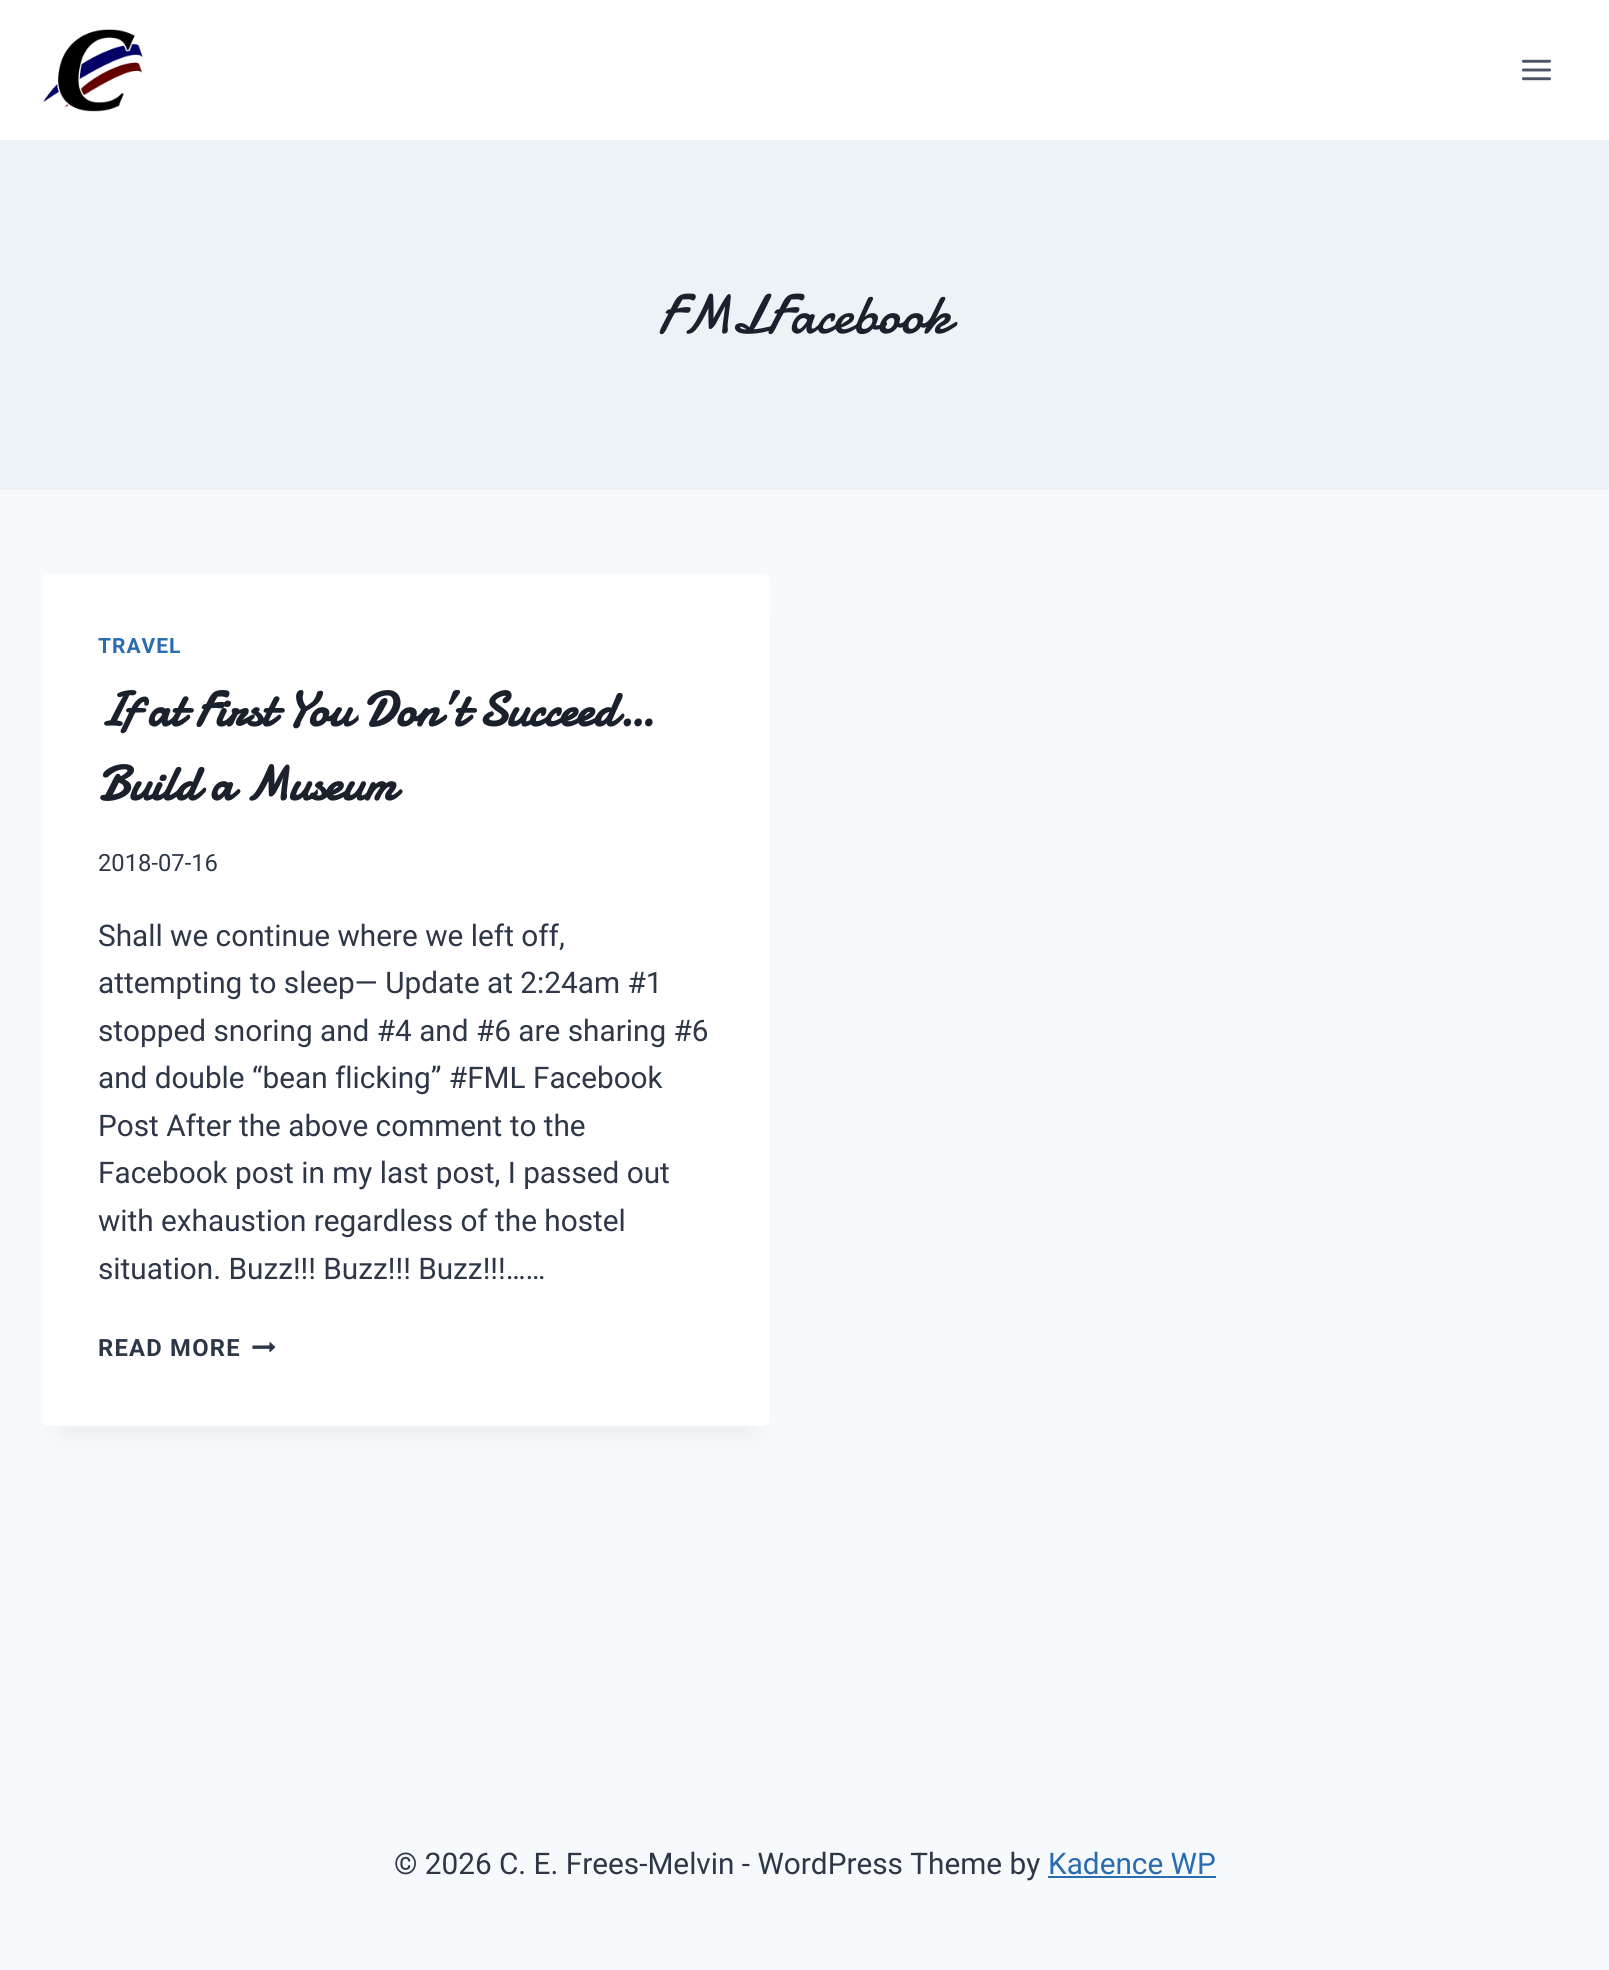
import math
import cairocffi as cairo

surface = cairo.ImageSurface(cairo.FORMAT_RGB24, 1609, 1970)
ctx = cairo.Context(surface)
options = cairo.FontOptions()
options.set_hint_metrics(cairo.HINT_METRICS_OFF)
options.set_hint_style(cairo.HINT_STYLE_NONE)
ctx.set_font_options(options)
ctx.set_miter_limit(4)


def rgb(r, g, b):
    ctx.set_source_rgb(r / 255, g / 255, b / 255)


def face(family, size, italic, bold):
    ctx.select_font_face(family, cairo.FONT_SLANT_ITALIC if italic else cairo.FONT_SLANT_NORMAL, cairo.FONT_WEIGHT_BOLD if bold else cairo.FONT_WEIGHT_NORMAL)
    ctx.set_font_size(size)


def label(x, y, s):
    ctx.move_to(x, y)
    ctx.show_text(s)


def tracked(x, y, s, letter, word):
    ctx.move_to(x, y)
    for ch in s:
        ctx.show_text(ch)
        ctx.rel_move_to(letter + word * (ch == ' '), 0)


def rect(x, y, w, h):
    ctx.rectangle(x, y, w, h)
    ctx.fill()


def rrect(x, y, w, h, r):
    ctx.new_sub_path()
    for i, (u, v) in enumerate([(x + w - r, y + h - r), (x + r, y + h - r), (x + r, y + r), (x + w - r, y + r)]):
        ctx.arc(u, v, r, i * math.pi / 2, (i + 1) * math.pi / 2)
    ctx.close_path()


def soft_shadow(x, y, w, h, r, blur, alpha):
    ctx.push_group_with_content(cairo.CONTENT_ALPHA)
    ctx.set_operator(cairo.OPERATOR_SOURCE)
    for i in range(15, -16, -2):
        e = blur * i / 6
        if min(w, h) + 2 * e > 0:
            ctx.set_source_rgba(0, 0, 0, alpha * math.erfc((i - 1) / 8.5) / 2)
            rrect(x - e, y - e, w + 2 * e, h + 2 * e, max(0, min(r + e + blur * .6, min(w, h) / 2 + e)))
            ctx.fill()
    ctx.mask(ctx.pop_group())


def image(path, x, y, w, h):
    ctx.save()
    ctx.set_source_surface(cairo.ImageSurface.create_from_png(path), x, y)
    ctx.rectangle(x, y, w, h)
    ctx.fill()
    ctx.restore()


rgb(247, 250, 252)
ctx.paint()
rgb(255, 255, 255)
rect(0, 0, 1609, 140)
image('image0.png', 43, 29, 100, 83)
image('image1.png', 1521, 59, 31, 22)
rgb(237, 242, 247)
rect(0, 140, 1609, 350)
face('Damion', 56, 0, 0)
rgb(26, 32, 44)
label(658, 333, 'FMLFacebook')
rgb(0, 0, 0)
soft_shadow(60, 618, 693, 817, 0, 13, 0.05)
rgb(255, 255, 255)
rrect(42, 574, 728, 852, 7)
ctx.fill()
face('Roboto', 21, 0, 1)
rgb(43, 108, 176)
tracked(98, 653, 'TRAVEL', 1, 0)
face('Damion', 49, 0, 1)
rgb(26, 32, 44)
label(98, 726, 'If at First You Don’t Succeed…')
label(98, 800, 'Build a Museum')
face('Roboto', 23.75, 0, 0)
rgb(45, 55, 72)
label(98, 871, '2018-07-16')
face('Roboto', 29.75, 0, 0)
label(98, 946, 'Shall we continue where we left off,')
label(98, 993, 'attempting to sleep— Update at 2:24am #1')
label(98, 1041, 'stopped snoring and #4 and #6 are sharing #6')
label(98, 1088, 'and double “bean flicking” #FML Facebook')
label(98, 1136, 'Post After the above comment to the')
label(98, 1183, 'Facebook post in my last post, I passed out')
label(98, 1231, 'with exhaustion regardless of the hostel')
label(98, 1279, 'situation. Buzz!!! Buzz!!! Buzz!!!……')
face('Roboto', 23.75, 0, 1)
tracked(98, 1356, 'READ MORE', 1.25, 0)
image('image2.png', 252, 1342, 24, 11)
face('Roboto', 29.75, 0, 0)
label(394, 1874, '© 2026 C. E. Frees-Melvin - WordPress Theme by')
rgb(43, 108, 176)
label(1048, 1874, 'Kadence WP')
rect(1048, 1876, 168, 2)
surface.write_to_png('render.png')
